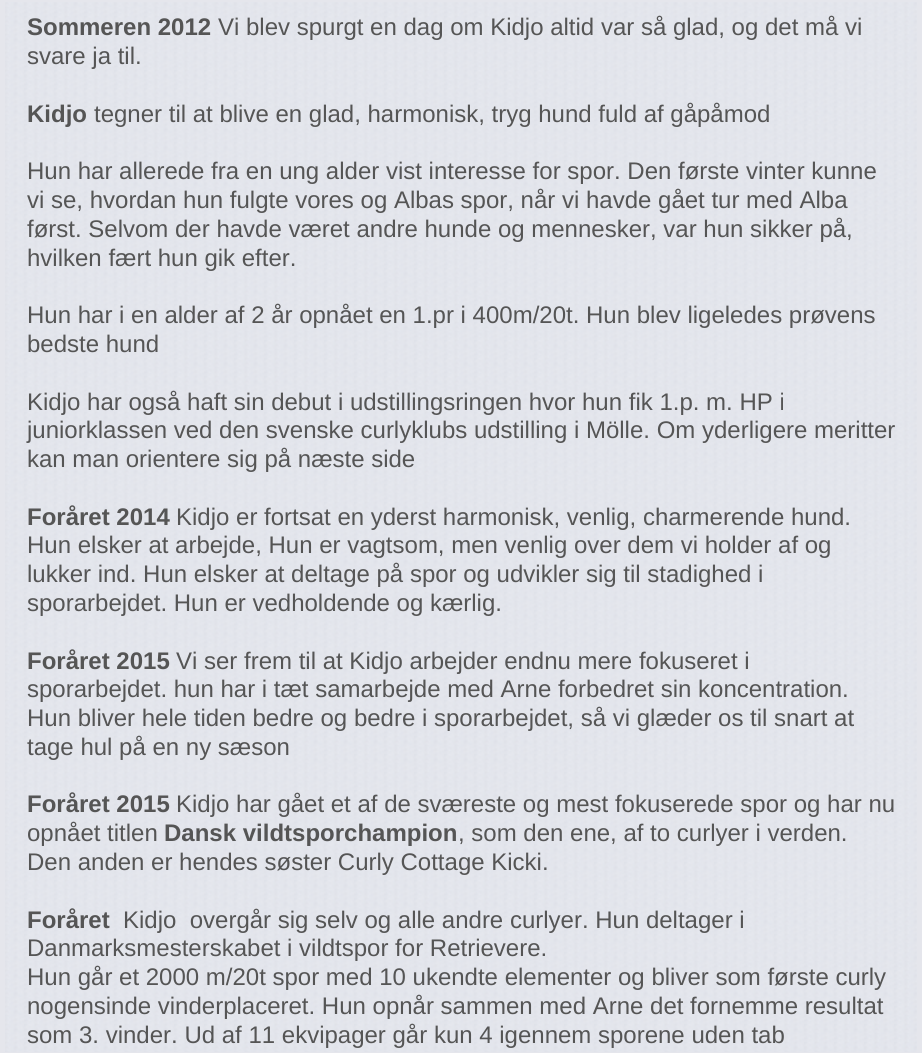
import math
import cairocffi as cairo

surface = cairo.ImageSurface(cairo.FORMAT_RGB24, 922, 1053)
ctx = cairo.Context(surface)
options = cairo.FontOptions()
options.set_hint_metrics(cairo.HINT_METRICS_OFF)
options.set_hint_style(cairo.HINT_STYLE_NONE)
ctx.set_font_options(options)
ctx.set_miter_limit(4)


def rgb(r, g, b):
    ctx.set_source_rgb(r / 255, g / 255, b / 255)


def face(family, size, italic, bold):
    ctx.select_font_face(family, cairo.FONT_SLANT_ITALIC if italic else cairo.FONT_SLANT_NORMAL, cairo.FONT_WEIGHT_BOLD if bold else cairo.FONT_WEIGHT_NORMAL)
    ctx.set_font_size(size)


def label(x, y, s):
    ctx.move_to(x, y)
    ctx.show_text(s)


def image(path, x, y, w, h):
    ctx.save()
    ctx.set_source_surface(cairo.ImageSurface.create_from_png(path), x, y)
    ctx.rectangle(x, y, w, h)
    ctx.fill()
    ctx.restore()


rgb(229, 230, 236)
ctx.paint()
image('image0.png', 5, 2, 912, 1050)
face('Liberation Sans', 24, 0, 1)
rgb(85, 85, 85)
label(27, 35, 'Sommeren 2012')
face('Liberation Sans', 24, 0, 0)
label(218, 35, 'Vi blev spurgt en dag om Kidjo altid var så glad, og det må vi')
label(27, 64, 'svare ja til.')
face('Liberation Sans', 24, 0, 1)
label(27, 122, 'Kidjo')
face('Liberation Sans', 24, 0, 0)
label(94, 122, 'tegner til at blive en glad, harmonisk, tryg hund fuld af gåpåmod')
label(27, 179, 'Hun har allerede fra en ung alder vist interesse for spor. Den første vinter kunne')
label(27, 208, 'vi se, hvordan hun fulgte vores og Albas spor, når vi havde gået tur med Alba')
label(27, 237, 'først. Selvom der havde været andre hunde og mennesker, var hun sikker på,')
label(27, 266, 'hvilken fært hun gik efter.')
label(27, 323, 'Hun har i en alder af 2 år opnået en 1.pr i 400m/20t. Hun blev ligeledes prøvens')
label(27, 352, 'bedste hund')
label(27, 410, 'Kidjo har også haft sin debut i udstillingsringen hvor hun fik 1.p. m. HP i')
label(27, 438, 'juniorklassen ved den svenske curlyklubs udstilling i Mölle. Om yderligere meritter')
label(27, 467, 'kan man orientere sig på næste side')
face('Liberation Sans', 24, 0, 1)
label(27, 525, 'Foråret 2014')
face('Liberation Sans', 24, 0, 0)
label(176, 525, 'Kidjo er fortsat en yderst harmonisk, venlig, charmerende hund.')
label(27, 553, 'Hun elsker at arbejde, Hun er vagtsom, men venlig over dem vi holder af og')
label(27, 582, 'lukker ind. Hun elsker at deltage på spor og udvikler sig til stadighed i')
label(27, 611, 'sporarbejdet. Hun er vedholdende og kærlig.')
face('Liberation Sans', 24, 0, 1)
label(27, 669, 'Foråret 2015')
face('Liberation Sans', 24, 0, 0)
label(176, 669, 'Vi ser frem til at Kidjo arbejder endnu mere fokuseret i')
label(27, 697, 'sporarbejdet. hun har i tæt samarbejde med Arne forbedret sin koncentration.')
label(27, 726, 'Hun bliver hele tiden bedre og bedre i sporarbejdet, så vi glæder os til snart at')
label(27, 755, 'tage hul på en ny sæson')
face('Liberation Sans', 24, 0, 1)
label(27, 812, 'Foråret 2015')
face('Liberation Sans', 24, 0, 0)
label(176, 812, 'Kidjo har gået et af de sværeste og mest fokuserede spor og har nu')
label(27, 841, 'opnået titlen')
face('Liberation Sans', 24, 0, 1)
label(164, 841, 'Dansk vildtsporchampion')
face('Liberation Sans', 24, 0, 0)
label(458, 841, ', som den ene, af to curlyer i verden.')
label(27, 870, 'Den anden er hendes søster Curly Cottage Kicki.')
face('Liberation Sans', 24, 0, 1)
label(27, 928, 'Foråret')
face('Liberation Sans', 24, 0, 0)
label(123, 928, 'Kidjo  overgår sig selv og alle andre curlyer. Hun deltager i')
label(27, 956, 'Danmarksmesterskabet i vildtspor for Retrievere.')
label(27, 985, 'Hun går et 2000 m/20t spor med 10 ukendte elementer og bliver som første curly')
label(27, 1014, 'nogensinde vinderplaceret. Hun opnår sammen med Arne det fornemme resultat')
label(27, 1043, 'som 3. vinder. Ud af 11 ekvipager går kun 4 igennem sporene uden tab')
surface.write_to_png('render.png')
